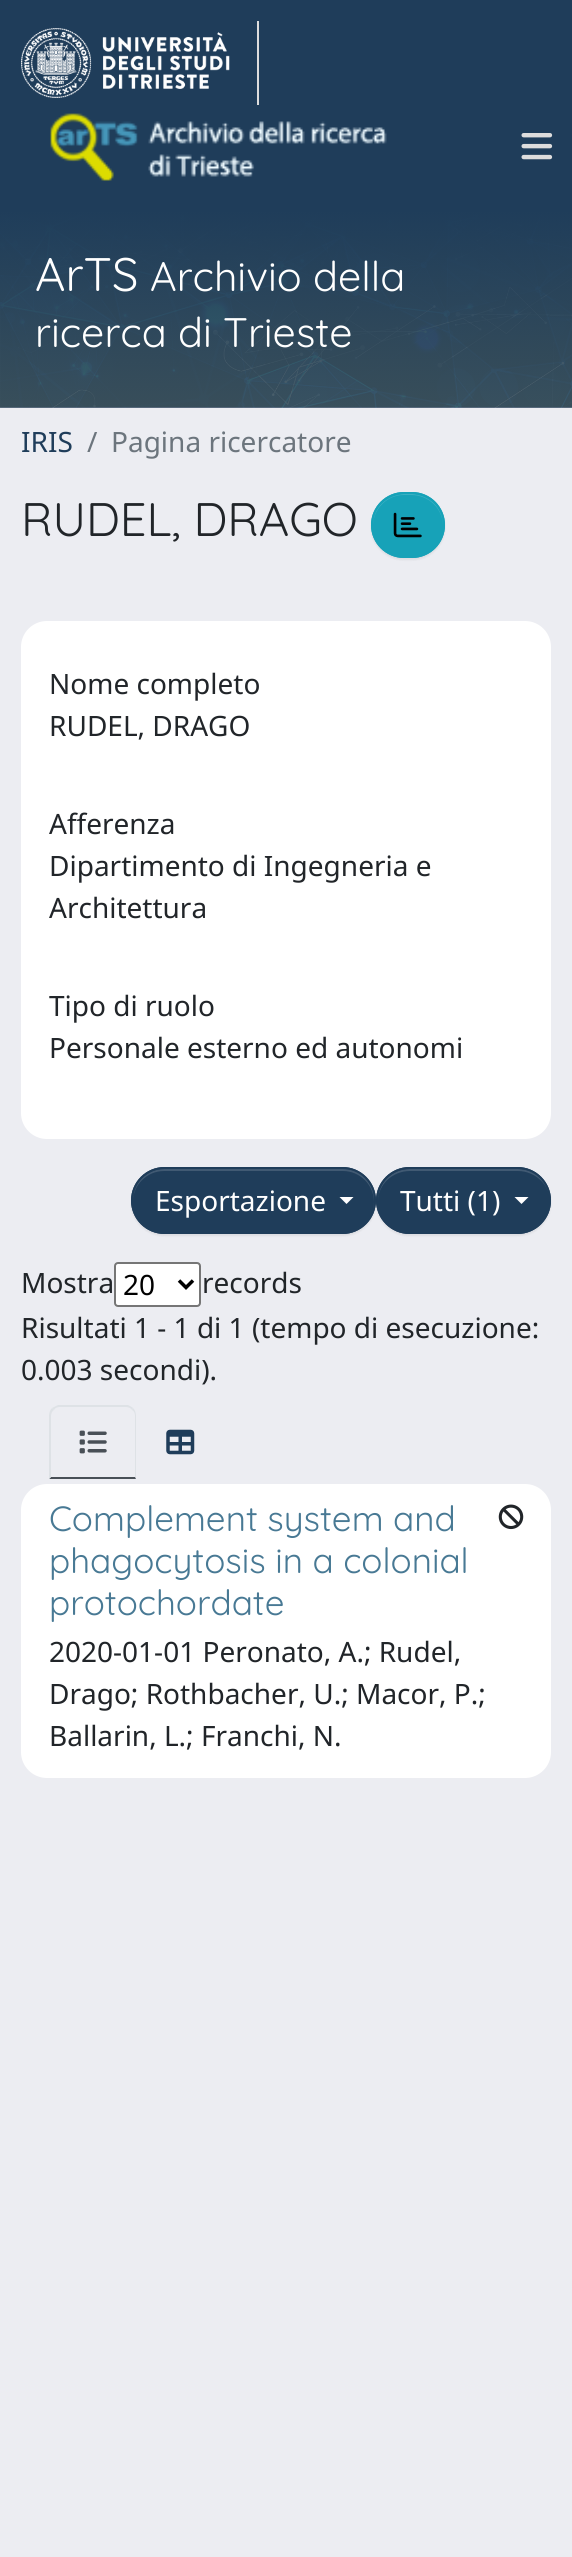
import math
import cairocffi as cairo

surface = cairo.ImageSurface(cairo.FORMAT_RGB24, 572, 2557)
ctx = cairo.Context(surface)
options = cairo.FontOptions()
options.set_hint_metrics(cairo.HINT_METRICS_OFF)
options.set_hint_style(cairo.HINT_STYLE_NONE)
ctx.set_font_options(options)
ctx.set_miter_limit(4)


def rgb(r, g, b):
    ctx.set_source_rgb(r / 255, g / 255, b / 255)


def face(family, size, italic, bold):
    ctx.select_font_face(family, cairo.FONT_SLANT_ITALIC if italic else cairo.FONT_SLANT_NORMAL, cairo.FONT_WEIGHT_BOLD if bold else cairo.FONT_WEIGHT_NORMAL)
    ctx.set_font_size(size)


def label(x, y, s):
    ctx.move_to(x, y)
    ctx.show_text(s)


def rect(x, y, w, h):
    ctx.rectangle(x, y, w, h)
    ctx.fill()


def rrect(x, y, w, h, r):
    ctx.new_sub_path()
    for i, (u, v) in enumerate([(x + w - r, y + h - r), (x + r, y + h - r), (x + r, y + r), (x + w - r, y + r)]):
        ctx.arc(u, v, r, i * math.pi / 2, (i + 1) * math.pi / 2)
    ctx.close_path()


def soft_shadow(x, y, w, h, r, blur, alpha):
    ctx.push_group_with_content(cairo.CONTENT_ALPHA)
    ctx.set_operator(cairo.OPERATOR_SOURCE)
    for i in range(15, -16, -2):
        e = blur * i / 6
        if min(w, h) + 2 * e > 0:
            ctx.set_source_rgba(0, 0, 0, alpha * math.erfc((i - 1) / 8.5) / 2)
            rrect(x - e, y - e, w + 2 * e, h + 2 * e, max(0, min(r + e + blur * .6, min(w, h) / 2 + e)))
            ctx.fill()
    ctx.mask(ctx.pop_group())


def image(path, x, y, w, h):
    ctx.save()
    ctx.set_source_surface(cairo.ImageSurface.create_from_png(path), x, y)
    ctx.rectangle(x, y, w, h)
    ctx.fill()
    ctx.restore()


rgb(236, 237, 242)
ctx.paint()
rgb(31, 61, 90)
rect(0, 0, 572, 210)
rgb(221, 221, 221)
rect(257, 21, 2, 84)
image('image0.png', 21, 28, 209, 70)
image('image1.png', 50, 113, 337, 68)
image('image2.png', 521, 133, 32, 27)
image('image3.png', 0, 210, 572, 198)
face('Quicksand Light', 47, 0, 0)
rgb(255, 255, 255)
label(35, 291, 'ArTS')
face('Quicksand Light', 41.25, 0, 0)
label(150, 291, 'Archivio della')
label(35, 347, 'ricerca di Trieste')
face('Noto Sans', 28, 0, 0)
rgb(31, 61, 90)
label(21, 452, 'IRIS')
rgb(108, 117, 125)
label(87, 452, '/')
label(111, 452, 'Pagina ricercatore')
face('Quicksand Light', 47, 0, 0)
rgb(33, 37, 41)
label(21, 536, 'RUDEL, DRAGO')
rgb(0, 0, 0)
soft_shadow(371, 494, 74, 66, 33, 1, 0.07)
rgb(23, 162, 184)
rrect(371, 492, 74, 66, 33)
ctx.fill()
rgb(58, 176, 195)
ctx.new_path()
ctx.move_to(404, 495)
ctx.line_to(411, 495)
ctx.curve_to(429, 495, 443, 509, 443, 526)
ctx.curve_to(444, 483, 372, 483, 373, 526)
ctx.curve_to(373, 509, 387, 495, 404, 495)
ctx.close_path()
ctx.fill()
rrect(372, 493, 72, 64, 32)
rgb(23, 162, 184)
ctx.stroke()
image('image4.png', 393, 512, 29, 26)
rgb(255, 255, 255)
rrect(21, 621, 530, 518, 26)
ctx.fill()
face('Noto Sans', 28, 0, 0)
rgb(33, 37, 41)
label(49, 694, 'Nome completo')
label(49, 736, 'RUDEL, DRAGO')
label(49, 834, 'Afferenza')
label(49, 876, 'Dipartimento di Ingegneria e')
label(49, 918, 'Architettura')
label(49, 1016, 'Tipo di ruolo')
label(49, 1058, 'Personale esterno ed autonomi')
rgb(0, 0, 0)
soft_shadow(376, 1169, 175, 67, 33.5, 1, 0.07)
rgb(31, 61, 90)
rrect(376, 1167, 175, 67, 33.5)
ctx.fill()
rgb(65, 90, 115)
ctx.new_path()
ctx.move_to(410, 1171)
ctx.line_to(518, 1171)
ctx.curve_to(535, 1171, 550, 1185, 550, 1201)
ctx.line_to(550, 1200)
ctx.curve_to(550, 1183, 536, 1169, 518, 1169)
ctx.line_to(410, 1169)
ctx.curve_to(392, 1169, 378, 1183, 378, 1200)
ctx.line_to(378, 1201)
ctx.curve_to(378, 1185, 392, 1171, 410, 1171)
ctx.close_path()
ctx.fill()
rrect(377, 1168, 173, 65, 32.5)
rgb(31, 61, 90)
ctx.stroke()
rgb(0, 0, 0)
soft_shadow(131, 1169, 245, 67, 33.5, 1, 0.07)
rgb(31, 61, 90)
rrect(131, 1167, 245, 67, 33.5)
ctx.fill()
rgb(65, 90, 115)
ctx.new_path()
ctx.move_to(164, 1171)
ctx.line_to(343, 1171)
ctx.curve_to(360, 1171, 374, 1185, 374, 1202)
ctx.curve_to(374, 1207, 373, 1212, 371, 1216)
ctx.curve_to(374, 1211, 375, 1206, 375, 1200)
ctx.curve_to(375, 1183, 361, 1169, 344, 1169)
ctx.line_to(164, 1169)
ctx.curve_to(147, 1169, 133, 1183, 133, 1200)
ctx.line_to(133, 1201)
ctx.curve_to(133, 1185, 147, 1171, 164, 1171)
ctx.close_path()
ctx.fill()
rrect(132, 1168, 243, 65, 32.5)
rgb(31, 61, 90)
ctx.stroke()
rgb(255, 255, 255)
label(155, 1211, 'Esportazione')
ctx.new_path()
ctx.move_to(339.5, 1197)
ctx.line_to(353.5, 1197)
ctx.line_to(346.5, 1204)
ctx.close_path()
ctx.fill()
label(400, 1211, 'Tutti (1)')
ctx.new_path()
ctx.move_to(514.5, 1197)
ctx.line_to(528.5, 1197)
ctx.line_to(521.5, 1204)
ctx.close_path()
ctx.fill()
rgb(33, 37, 41)
label(21, 1293, 'Mostra')
rgb(255, 255, 255)
rrect(115, 1263, 85, 43, 3)
ctx.fill_preserve()
rgb(118, 118, 118)
ctx.stroke()
ctx.new_path()
ctx.move_to(179, 1280.5)
ctx.line_to(186, 1287.5)
ctx.line_to(193, 1280.5)
rgb(0, 0, 0)
ctx.set_line_width(3.5)
ctx.stroke()
label(123, 1295, '20')
rgb(33, 37, 41)
label(202, 1293, 'records')
label(21, 1338, 'Risultati 1 - 1 di 1 (tempo di esecuzione:')
label(21, 1380, '0.003 secondi).')
rgb(222, 226, 230)
ctx.new_path()
ctx.move_to(60, 1407)
ctx.curve_to(57, 1407, 55, 1408, 54, 1410)
ctx.line_to(52, 1408)
ctx.curve_to(54, 1407, 56, 1406, 58, 1405)
ctx.line_to(128, 1405)
ctx.curve_to(130, 1406, 132, 1407, 133, 1408)
ctx.line_to(132, 1410)
ctx.curve_to(131, 1408, 128, 1407, 126, 1407)
ctx.close_path()
ctx.fill()
ctx.new_path()
ctx.move_to(133, 1408)
ctx.curve_to(135, 1410, 136, 1413, 136, 1416)
ctx.line_to(136, 1478)
ctx.line_to(135, 1477)
ctx.line_to(135, 1416)
ctx.curve_to(135, 1413, 134, 1411, 132, 1410)
ctx.close_path()
ctx.fill()
rgb(73, 80, 87)
ctx.new_path()
ctx.move_to(136, 1479)
ctx.line_to(49, 1479)
ctx.line_to(51, 1477)
ctx.line_to(135, 1477)
ctx.close_path()
ctx.fill()
rgb(222, 226, 230)
ctx.new_path()
ctx.move_to(49, 1479)
ctx.line_to(51, 1477)
ctx.line_to(51, 1416)
ctx.curve_to(51, 1414, 52, 1411, 54, 1410)
ctx.line_to(52, 1408)
ctx.curve_to(50, 1410, 49, 1413, 49, 1416)
ctx.close_path()
ctx.fill()
image('image5.png', 79, 1430, 28, 24)
image('image6.png', 166, 1429, 29, 26)
rgb(255, 255, 255)
rrect(21, 1484, 530, 294, 26)
ctx.fill()
face('Quicksand Light', 35, 0, 0)
rgb(72, 121, 148)
label(49, 1531, 'Complement system and')
label(49, 1573, 'phagocytosis in a colonial')
label(49, 1615, 'protochordate')
image('image7.png', 498, 1504, 26, 26)
face('Noto Sans', 28, 0, 0)
rgb(33, 37, 41)
label(49, 1662, '2020-01-01 Peronato, A.; Rudel,')
label(49, 1704, 'Drago; Rothbacher, U.; Macor, P.;')
label(49, 1746, 'Ballarin, L.; Franchi, N.')
surface.write_to_png('render.png')
